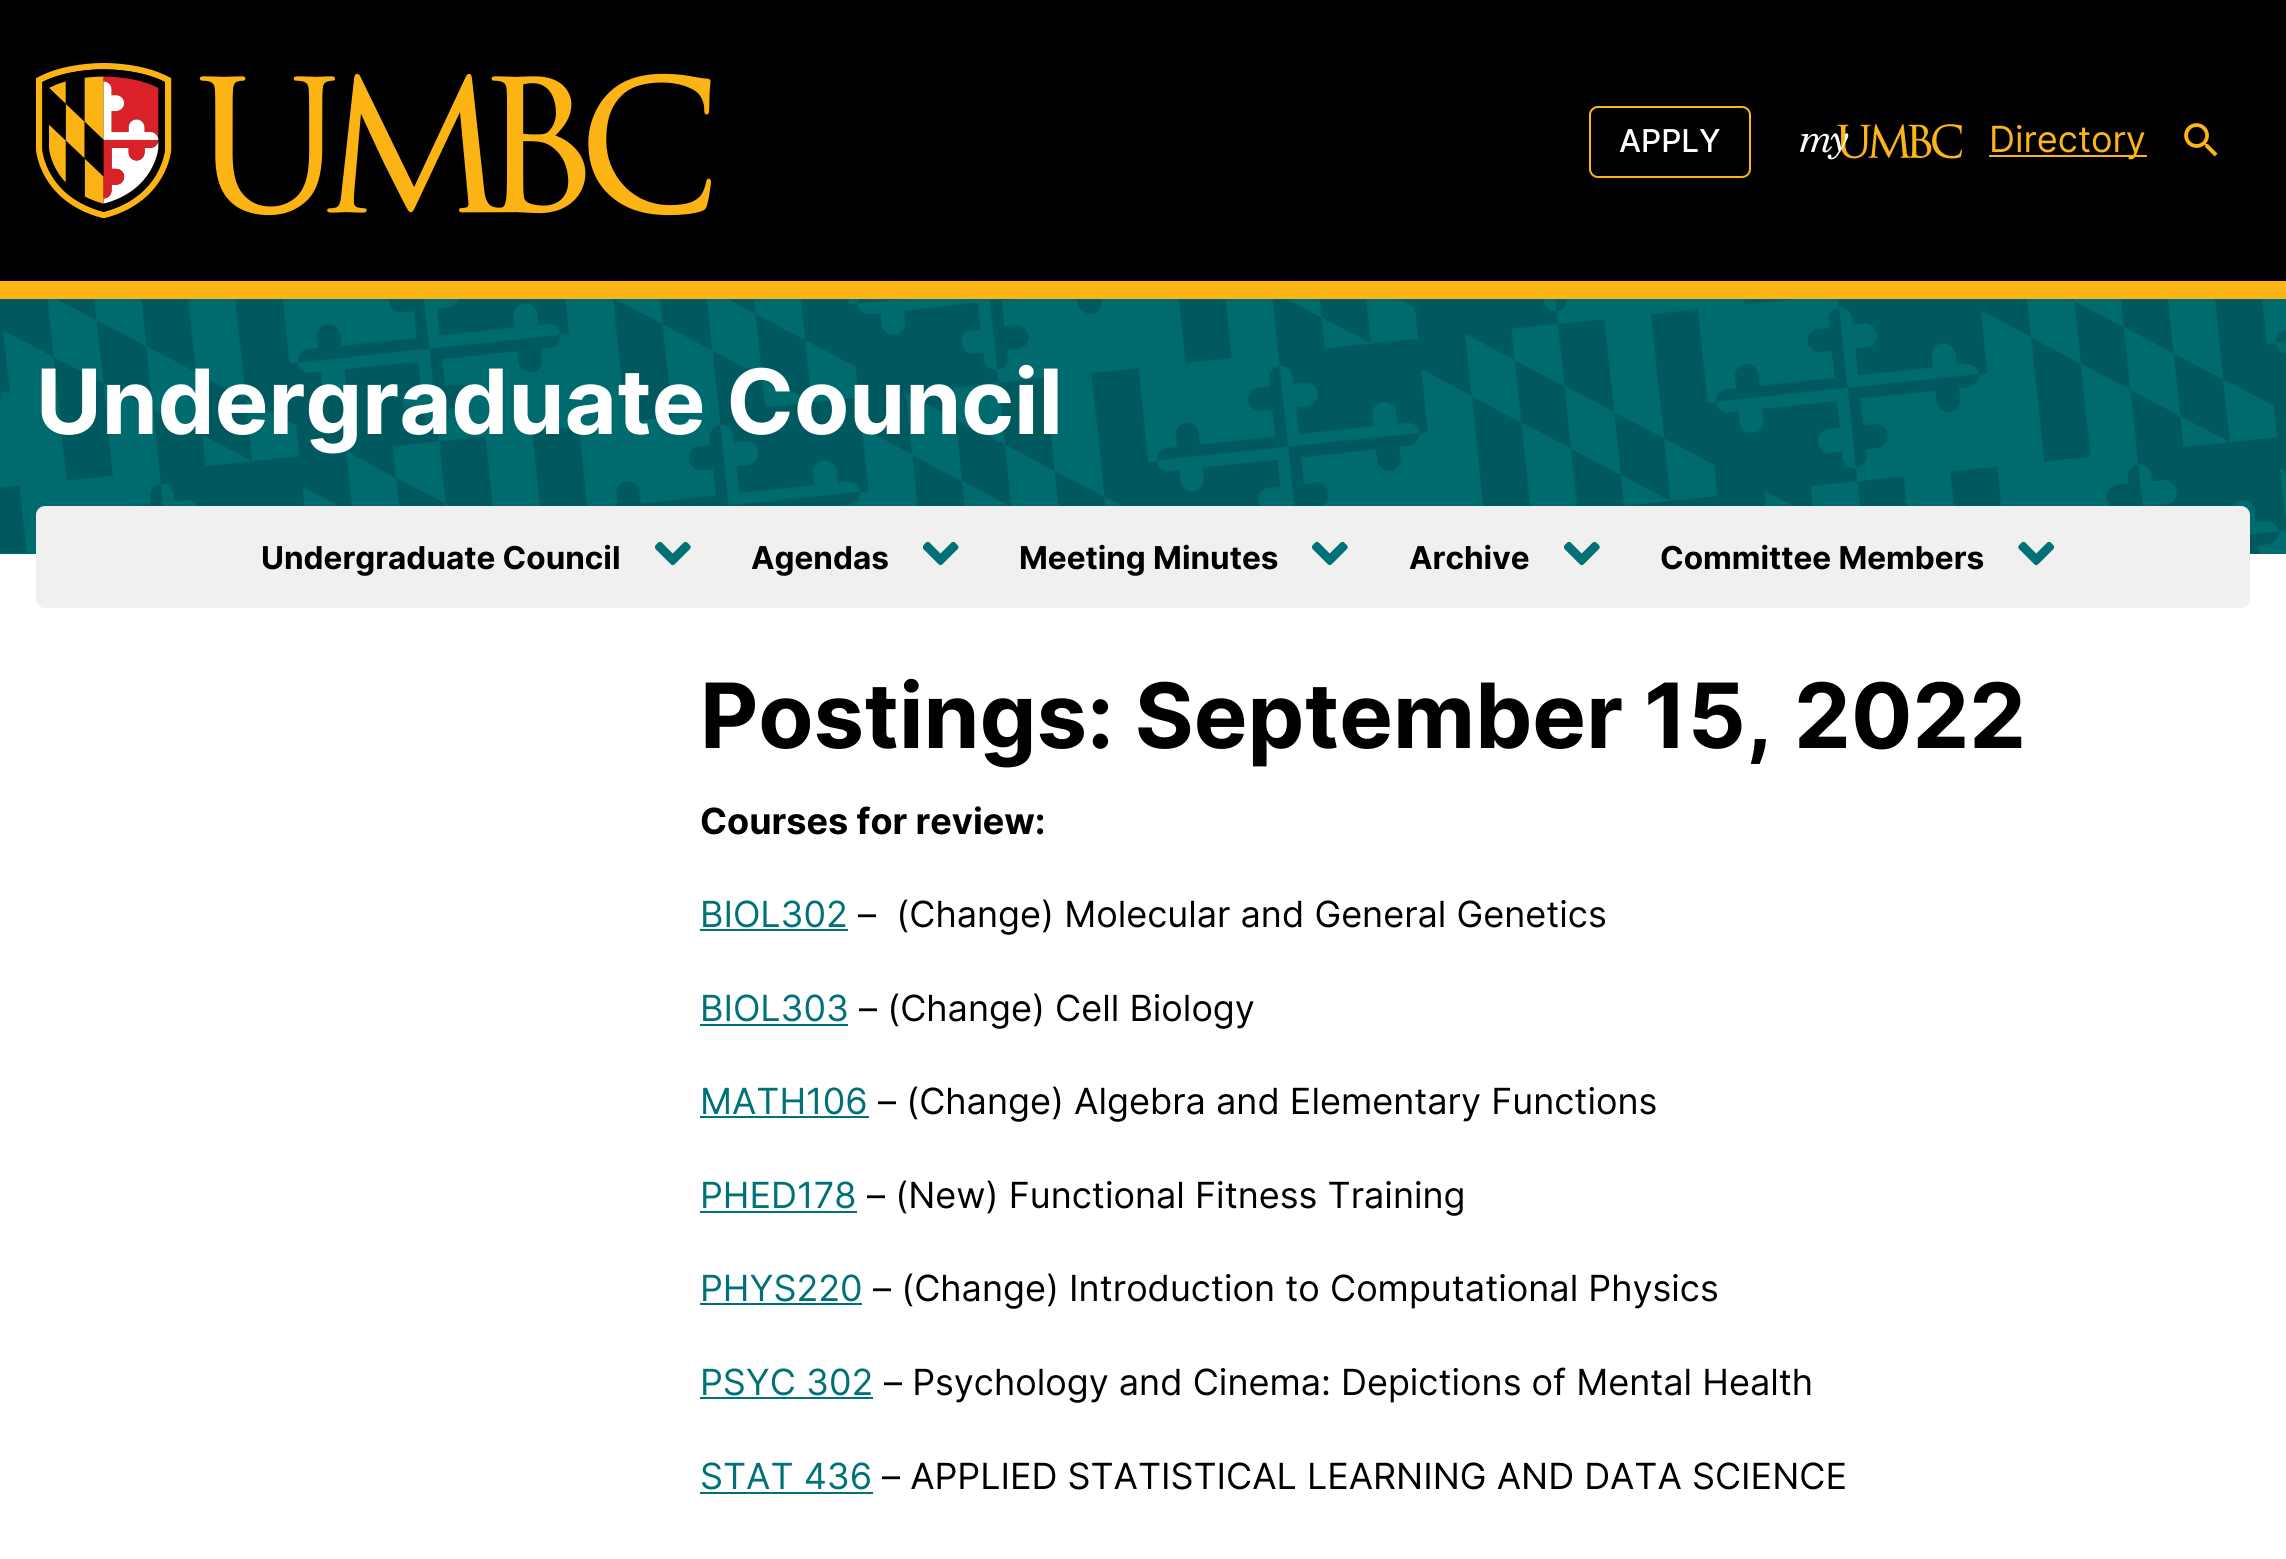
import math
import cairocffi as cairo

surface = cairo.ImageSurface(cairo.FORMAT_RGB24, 2286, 1559)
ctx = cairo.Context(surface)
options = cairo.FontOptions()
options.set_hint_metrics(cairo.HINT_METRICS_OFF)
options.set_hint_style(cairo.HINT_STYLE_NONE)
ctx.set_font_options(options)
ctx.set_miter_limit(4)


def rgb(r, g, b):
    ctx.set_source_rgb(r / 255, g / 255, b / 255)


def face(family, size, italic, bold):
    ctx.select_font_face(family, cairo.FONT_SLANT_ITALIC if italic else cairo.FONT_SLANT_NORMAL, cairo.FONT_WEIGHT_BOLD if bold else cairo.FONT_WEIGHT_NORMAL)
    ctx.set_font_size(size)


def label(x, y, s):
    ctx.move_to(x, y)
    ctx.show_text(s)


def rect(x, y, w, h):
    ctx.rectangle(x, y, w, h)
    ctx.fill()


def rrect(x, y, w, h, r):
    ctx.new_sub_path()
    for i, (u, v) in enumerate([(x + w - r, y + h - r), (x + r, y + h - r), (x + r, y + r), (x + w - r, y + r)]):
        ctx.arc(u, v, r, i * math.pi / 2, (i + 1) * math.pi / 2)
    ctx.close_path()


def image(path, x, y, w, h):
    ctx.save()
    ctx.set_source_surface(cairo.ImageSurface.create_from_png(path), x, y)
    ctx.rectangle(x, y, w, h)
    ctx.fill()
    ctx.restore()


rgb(255, 255, 255)
ctx.paint()
rgb(0, 0, 0)
rect(0, 0, 2286, 281)
rgb(253, 181, 21)
rect(0, 281, 2286, 18)
image('image0.png', 36, 63, 675, 155)
rrect(1590, 107, 160, 70, 8)
ctx.stroke()
face('Inter Medium', 31.5, 0, 0)
rgb(255, 255, 255)
label(1619, 152, 'APPLY')
image('image1.png', 1800, 124, 162, 36)
rgb(253, 181, 21)
rect(1989, 155, 158, 2)
face('Inter', 36, 0, 0)
label(1989, 152, 'Directory')
image('image2.png', 2184, 123, 34, 34)
rgb(0, 107, 111)
rect(0, 299, 2286, 255)
image('image3.png', 0, 299, 2286, 255)
face('Inter', 90, 0, 1)
rgb(255, 255, 255)
label(36, 434, 'Undergraduate Council')
rgb(239, 240, 239)
rrect(36, 506, 2214, 102, 9)
ctx.fill()
face('Inter', 31.5, 0, 1)
rgb(0, 0, 0)
label(261, 569, 'Undergraduate Council')
image('image4.png', 655, 541, 36, 25)
label(751, 569, 'Agendas')
image('image5.png', 923, 541, 36, 25)
label(1019, 569, 'Meeting Minutes')
image('image4.png', 1312, 541, 36, 25)
label(1409, 569, 'Archive')
image('image4.png', 1564, 541, 36, 25)
label(1660, 569, 'Committee Members')
image('image6.png', 2018, 541, 36, 25)
face('Inter', 90, 0, 1)
label(700, 748, 'Postings: September 15, 2022')
face('Inter', 36, 0, 1)
label(700, 834, 'Courses for review:')
face('Inter', 36, 0, 0)
rgb(0, 113, 118)
label(700, 927, 'BIOL302')
rect(700, 929, 148, 2)
rgb(0, 0, 0)
label(858, 927, '–  (Change) Molecular and General Genetics')
rgb(0, 113, 118)
label(700, 1021, 'BIOL303')
rect(700, 1024, 148, 2)
rgb(0, 0, 0)
label(859, 1021, '– (Change) Cell Biology')
rgb(0, 113, 118)
label(700, 1114, 'MATH106')
rect(700, 1116, 169, 2)
rgb(0, 0, 0)
label(878, 1114, '– (Change) Algebra and Elementary Functions')
rgb(0, 113, 118)
label(700, 1208, 'PHED178')
rect(700, 1211, 157, 2)
rgb(0, 0, 0)
label(867, 1208, '– (New) Functional Fitness Training')
rgb(0, 113, 118)
label(700, 1301, 'PHYS220')
rect(700, 1303, 162, 2)
rgb(0, 0, 0)
label(873, 1301, '– (Change) Introduction to Computational Physics')
rgb(0, 113, 118)
label(700, 1395, 'PSYC 302')
rect(700, 1397, 173, 2)
rgb(0, 0, 0)
label(884, 1395, '– Psychology and Cinema: Depictions of Mental Health')
rgb(0, 113, 118)
label(700, 1489, 'STAT 436')
rect(700, 1492, 173, 2)
rgb(0, 0, 0)
label(882, 1489, '– APPLIED STATISTICAL LEARNING AND DATA SCIENCE')
surface.write_to_png('render.png')
